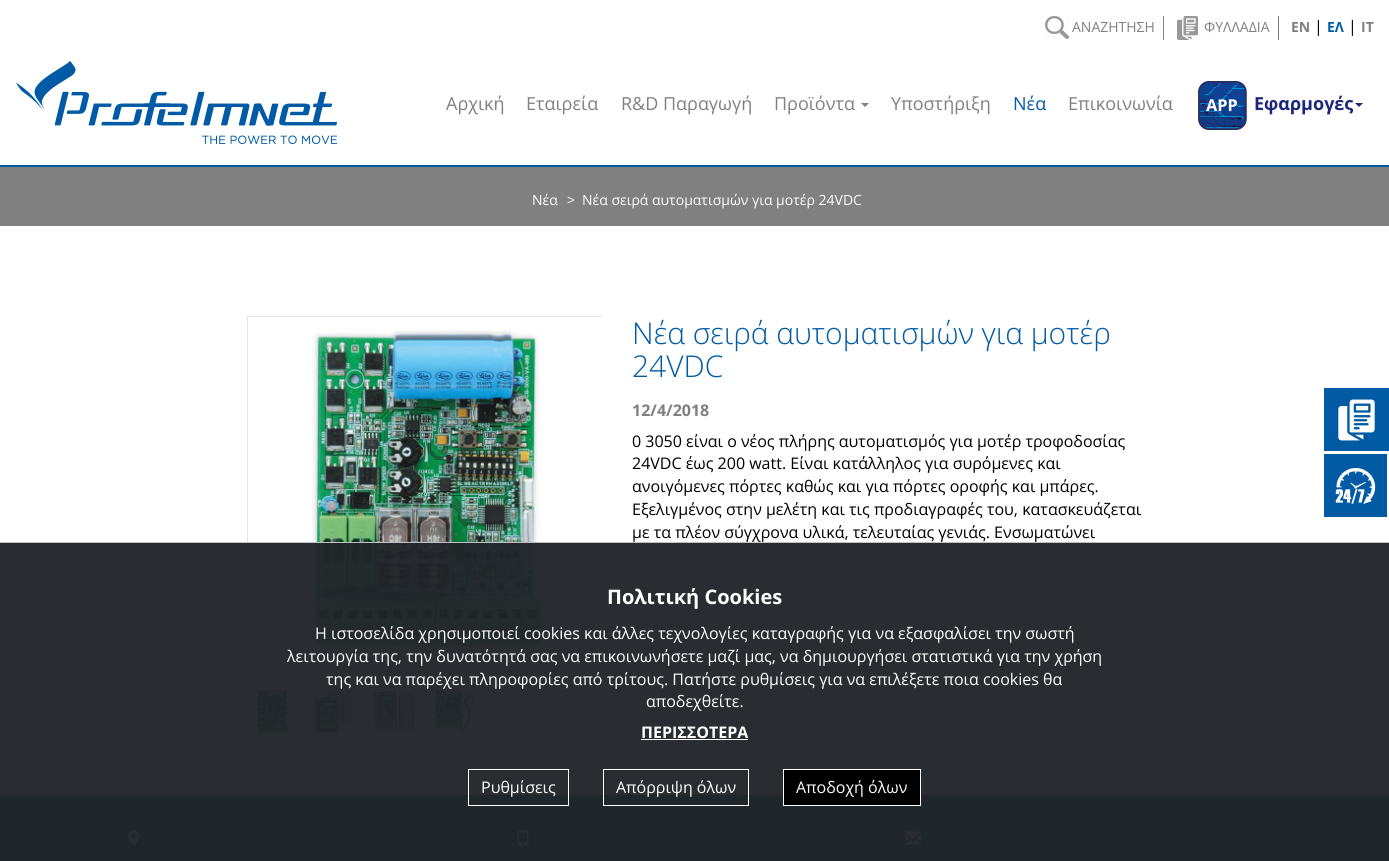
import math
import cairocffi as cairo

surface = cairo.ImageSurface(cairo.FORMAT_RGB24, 1389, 861)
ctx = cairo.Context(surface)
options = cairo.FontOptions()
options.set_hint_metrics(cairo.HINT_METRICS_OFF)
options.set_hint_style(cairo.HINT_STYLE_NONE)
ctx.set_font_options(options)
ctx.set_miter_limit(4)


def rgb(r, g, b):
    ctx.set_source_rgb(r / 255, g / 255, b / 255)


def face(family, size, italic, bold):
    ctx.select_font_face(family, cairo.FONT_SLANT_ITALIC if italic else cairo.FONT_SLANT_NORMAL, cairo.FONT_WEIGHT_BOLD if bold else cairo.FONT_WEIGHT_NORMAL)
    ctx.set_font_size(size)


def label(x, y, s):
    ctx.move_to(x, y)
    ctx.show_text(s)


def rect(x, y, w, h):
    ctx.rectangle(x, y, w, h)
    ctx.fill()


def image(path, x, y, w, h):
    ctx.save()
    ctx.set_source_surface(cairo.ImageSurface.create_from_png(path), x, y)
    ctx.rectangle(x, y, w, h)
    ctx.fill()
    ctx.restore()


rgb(255, 255, 255)
ctx.paint()
rgb(0, 90, 165)
rect(0, 165, 1389, 2)
rgb(128, 128, 128)
rect(1163, 16, 1, 24)
image('image0.png', 1045, 16, 24, 23)
face('Open Sans', 14, 0, 0)
label(1072, 32, 'ΑΝΑΖΗΤΗΣΗ')
rect(1278, 16, 1, 24)
image('image1.png', 1177, 16, 21, 24)
label(1204, 32, 'ΦΥΛΛΑΔΙΑ')
face('Open Sans', 14, 0, 1)
label(1291, 32, 'EN')
face('Open Sans', 16, 0, 0)
rgb(0, 0, 0)
label(1314, 32, '|')
face('Open Sans', 14, 0, 1)
rgb(0, 90, 165)
label(1327, 32, 'ΕΛ')
face('Open Sans', 16, 0, 0)
rgb(0, 0, 0)
label(1348, 32, '|')
face('Open Sans', 14, 0, 1)
rgb(128, 128, 128)
label(1361, 32, 'IT')
image('image2.png', 16, 61, 321, 83)
face('Open Sans', 18, 0, 0)
label(446, 110, 'Αρχική')
label(526, 110, 'Εταιρεία')
label(621, 110, 'R&D Παραγωγή')
label(774, 110, 'Προϊόντα')
ctx.new_path()
ctx.move_to(861, 103)
ctx.line_to(869, 103)
ctx.line_to(865, 107)
ctx.close_path()
ctx.fill()
label(891, 110, 'Υποστήριξη')
rgb(0, 90, 165)
label(1013, 110, 'Νέα')
rgb(128, 128, 128)
label(1068, 110, 'Επικοινωνία')
image('image3.png', 1198, 81, 49, 49)
face('Open Sans', 18, 0, 1)
rgb(27, 38, 122)
label(1254, 110, 'Εφαρμογές')
ctx.new_path()
ctx.move_to(1355, 103)
ctx.line_to(1363, 103)
ctx.line_to(1359, 107)
ctx.close_path()
ctx.fill()
rgb(128, 128, 128)
rect(0, 167, 1389, 59)
face('Open Sans', 14, 0, 0)
rgb(255, 255, 255)
label(532, 205, 'Νέα')
label(567, 205, '>')
label(582, 205, 'Νέα σειρά αυτοματισμών για μοτέρ 24VDC')
ctx.save()
ctx.rectangle(247, 316, 355, 356)
ctx.clip()
ctx.rectangle(247.5, 316.5, 355, 355)
rgb(230, 230, 230)
ctx.set_line_width(1)
ctx.stroke()
ctx.restore()
image('image4.png', 311, 330, 236, 320)
ctx.rectangle(247.5, 687.5, 49, 49)
rgb(230, 230, 230)
ctx.set_line_width(1)
ctx.stroke()
image('image5.png', 256, 689, 32, 44)
ctx.rectangle(308.5, 687.5, 49, 49)
ctx.stroke()
image('image6.png', 313, 690, 40, 46)
ctx.rectangle(369.5, 687.5, 49, 49)
ctx.stroke()
image('image7.png', 371, 691, 45, 44)
ctx.rectangle(430.5, 687.5, 49, 49)
ctx.stroke()
image('image8.png', 435, 689, 42, 45)
face('Open Sans Light', 30, 0, 0)
rgb(0, 90, 165)
label(632, 344, 'Νέα σειρά αυτοματισμών για μοτέρ')
label(632, 377, '24VDC')
face('Open Sans', 16, 0, 1)
rgb(128, 128, 128)
label(632, 416, '12/4/2018')
face('Open Sans', 16, 0, 0)
rgb(0, 0, 0)
label(632, 447, '0 3050 είναι ο νέος πλήρης αυτοματισμός για μοτέρ τροφοδοσίας')
label(632, 469, '24VDC έως 200 watt. Είναι κατάλληλος για συρόμενες και')
label(632, 492, 'ανοιγόμενες πόρτες καθώς και για πόρτες οροφής και μπάρες.')
label(632, 515, 'Εξελιγμένος στην μελέτη και τις προδιαγραφές του, κατασκευάζεται')
label(632, 538, 'με τα πλέον σύγχρονα υλικά, τελευταίας γενιάς. Ενσωματώνει')
rgb(0, 90, 165)
rect(0, 795, 1389, 66)
image('image9.png', 127, 830, 13, 16)
image('image10.png', 517, 830, 12, 16)
image('image11.png', 905, 831, 16, 14)
image('image12.png', 1324, 388, 65, 63)
image('image13.png', 1324, 454, 63, 63)
rgb(193, 193, 193)
rect(0, 542, 1389, 1)
ctx.set_source_rgba(0.129, 0.145, 0.161, 0.96)
rect(0, 543, 1389, 318)
face('Open Sans', 20, 0, 1)
rgb(255, 255, 255)
label(607, 604, 'Πολιτική Cookies')
face('Open Sans', 16, 0, 0)
label(315, 639, 'Η ιστοσελίδα χρησιμοποιεί cookies και άλλες τεχνολογίες καταγραφής για να εξασφαλίσει την σωστή')
label(287, 662, 'λειτουργία της, την δυνατότητά σας να επικοινωνήσετε μαζί μας, να δημιουργήσει στατιστικά για την χρήση')
label(326, 685, 'της και να παρέχει πληροφορίες από τρίτους. Πατήστε ρυθμίσεις για να επιλέξετε ποια cookies θα')
label(646, 707, 'αποδεχθείτε.')
face('Open Sans', 16, 0, 1)
label(641, 738, 'ΠΕΡΙΣΣΟΤΕΡΑ')
rect(641, 739, 107, 1)
ctx.rectangle(468.5, 769.5, 100, 36)
ctx.stroke()
face('Open Sans', 16, 0, 0)
label(481, 793, 'Ρυθμίσεις')
ctx.rectangle(603.5, 769.5, 145, 36)
ctx.stroke()
label(616, 793, 'Απόρριψη όλων')
rgb(0, 0, 0)
ctx.rectangle(783.5, 769.5, 137, 36)
ctx.fill_preserve()
rgb(255, 255, 255)
ctx.stroke()
label(796, 793, 'Αποδοχή όλων')
surface.write_to_png('render.png')
